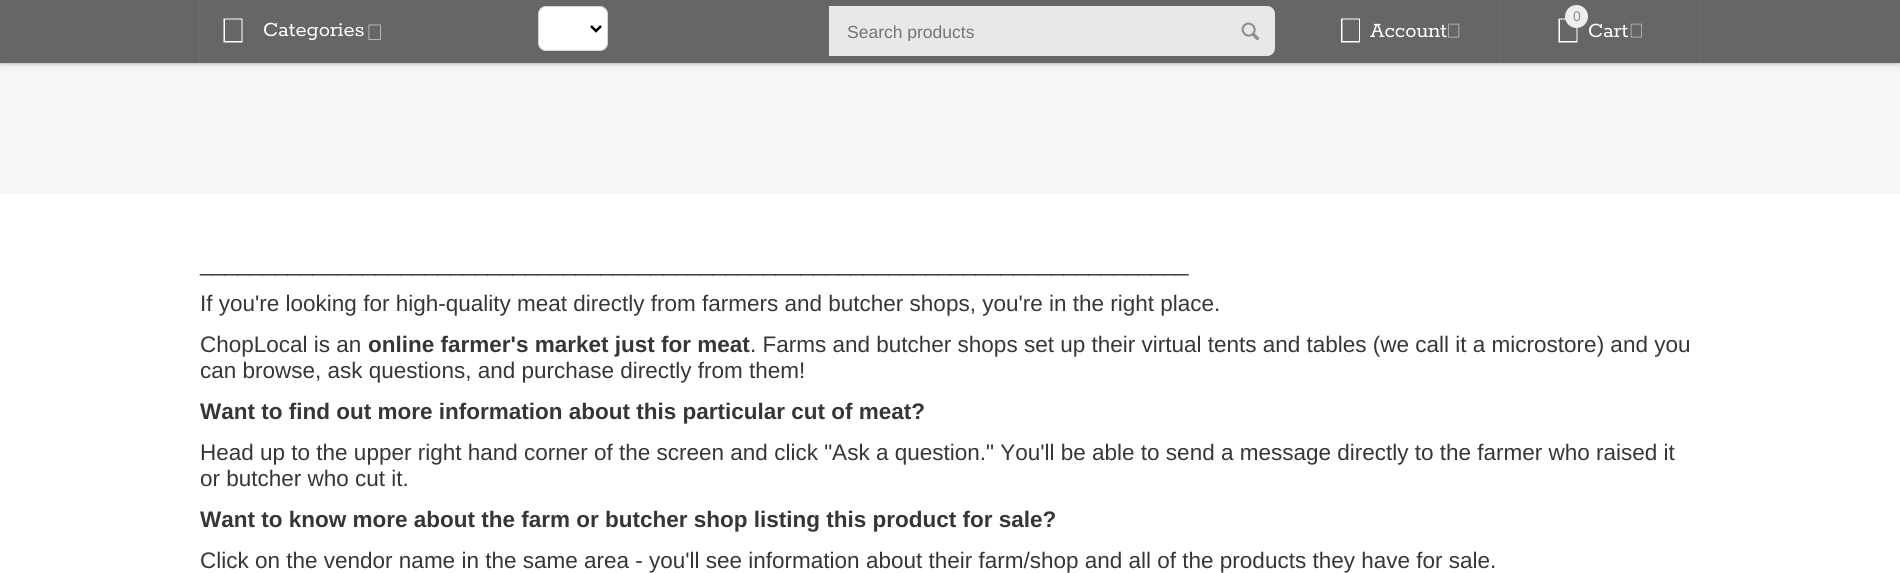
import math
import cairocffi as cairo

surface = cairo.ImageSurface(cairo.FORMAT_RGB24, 1900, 573)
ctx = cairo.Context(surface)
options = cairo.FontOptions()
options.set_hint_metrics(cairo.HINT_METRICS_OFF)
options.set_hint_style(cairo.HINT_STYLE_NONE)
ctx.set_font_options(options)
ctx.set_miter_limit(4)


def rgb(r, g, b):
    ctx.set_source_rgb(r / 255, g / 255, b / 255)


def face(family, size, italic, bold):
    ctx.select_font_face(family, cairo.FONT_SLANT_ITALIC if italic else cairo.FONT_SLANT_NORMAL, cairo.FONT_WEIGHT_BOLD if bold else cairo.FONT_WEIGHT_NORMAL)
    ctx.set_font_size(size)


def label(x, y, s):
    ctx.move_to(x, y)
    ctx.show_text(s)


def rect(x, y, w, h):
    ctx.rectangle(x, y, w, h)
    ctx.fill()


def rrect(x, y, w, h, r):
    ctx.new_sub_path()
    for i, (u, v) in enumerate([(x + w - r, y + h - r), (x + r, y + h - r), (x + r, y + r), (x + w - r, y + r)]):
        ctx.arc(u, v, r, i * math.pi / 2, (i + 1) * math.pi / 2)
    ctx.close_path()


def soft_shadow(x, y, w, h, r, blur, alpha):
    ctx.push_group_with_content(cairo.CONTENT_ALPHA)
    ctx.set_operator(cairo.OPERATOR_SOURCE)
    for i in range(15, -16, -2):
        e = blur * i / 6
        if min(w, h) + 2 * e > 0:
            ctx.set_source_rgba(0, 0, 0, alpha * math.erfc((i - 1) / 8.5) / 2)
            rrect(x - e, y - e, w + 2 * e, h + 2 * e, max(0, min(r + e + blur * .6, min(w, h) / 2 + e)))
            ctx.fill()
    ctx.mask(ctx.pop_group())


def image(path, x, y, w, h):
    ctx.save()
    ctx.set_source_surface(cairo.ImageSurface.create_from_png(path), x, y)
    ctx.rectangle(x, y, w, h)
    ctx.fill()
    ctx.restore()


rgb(255, 255, 255)
ctx.paint()
rgb(246, 246, 246)
rect(0, 63, 1900, 131)
rgb(0, 0, 0)
soft_shadow(0, 4, 1900, 62, 0, 2, 0.1)
soft_shadow(0, 1, 1900, 63, 0, 0.5, 0.1)
rgb(102, 102, 102)
rect(0, 0, 1900, 63)
rgb(55, 148, 36)
rect(199, 0, 1, 63)
rgb(255, 255, 255)
ctx.new_path()
ctx.move_to(223.5, 18.5)
ctx.line_to(242.5, 18.5)
ctx.line_to(242.5, 42.5)
ctx.line_to(223.5, 42.5)
ctx.close_path()
ctx.move_to(225, 19.5)
ctx.line_to(225, 41)
ctx.line_to(241.5, 41)
ctx.line_to(241.5, 19.5)
ctx.close_path()
ctx.fill()
face('Rokkitt SemiBold', 22.5, 0, 0)
label(263, 36, 'Categories')
image('image0.png', 368, 24, 13, 16)
rrect(538.5, 6.5, 69, 44, 7.5)
ctx.fill_preserve()
rgb(213, 213, 213)
ctx.set_line_width(1)
ctx.stroke()
ctx.new_path()
ctx.move_to(591, 26)
ctx.line_to(596, 31)
ctx.line_to(601, 26)
rgb(0, 0, 0)
ctx.set_line_width(2.5)
ctx.stroke()
rgb(232, 232, 232)
ctx.new_path()
ctx.move_to(829, 6)
ctx.line_to(1267, 6)
ctx.curve_to(1271.5, 6, 1275, 9.5, 1275, 14)
ctx.line_to(1275, 48)
ctx.curve_to(1275, 52.5, 1271.5, 56, 1267, 56)
ctx.line_to(829, 56)
ctx.close_path()
ctx.fill()
ctx.save()
ctx.rectangle(848, 21, 376, 20)
ctx.clip()
face('Liberation Sans', 17.5, 0, 0)
rgb(117, 117, 117)
label(847, 38, 'Search products')
ctx.restore()
image('image1.png', 1241, 22, 19, 19)
rgb(55, 148, 36)
rect(1499, 0, 1, 63)
rgb(255, 255, 255)
ctx.new_path()
ctx.move_to(1341, 18.5)
ctx.line_to(1360, 18.5)
ctx.line_to(1360, 42.5)
ctx.line_to(1341, 42.5)
ctx.close_path()
ctx.move_to(1342.5, 19.5)
ctx.line_to(1342.5, 41)
ctx.line_to(1359, 41)
ctx.line_to(1359, 19.5)
ctx.close_path()
ctx.fill()
label(1370, 37, 'Account')
image('image2.png', 1448, 23, 12, 15)
rgb(55, 148, 36)
rect(1699, 0, 1, 63)
rgb(255, 255, 255)
ctx.new_path()
ctx.move_to(1558.5, 18.5)
ctx.line_to(1577.5, 18.5)
ctx.line_to(1577.5, 42.5)
ctx.line_to(1558.5, 42.5)
ctx.close_path()
ctx.move_to(1560, 19.5)
ctx.line_to(1560, 41)
ctx.line_to(1576.5, 41)
ctx.line_to(1576.5, 19.5)
ctx.close_path()
ctx.fill()
rgb(238, 238, 238)
ctx.arc(1576.5, 16.5, 11.5, 0, 2 * math.pi)
ctx.fill()
face('Liberation Sans', 14, 0, 0)
rgb(143, 143, 143)
label(1573, 21, '0')
face('Rokkitt SemiBold', 22.5, 0, 0)
rgb(255, 255, 255)
label(1588, 37, 'Cart')
image('image3.png', 1630, 23, 12, 15)
face('Liberation Sans', 22.5, 0, 0)
rgb(54, 54, 54)
label(200, 271, '_______________________________________________________________________________')
label(200, 311, 'If you\'re looking for high-quality meat directly from farmers and butcher shops, you\'re in the right place.')
label(200, 352, 'ChopLocal is an')
face('Liberation Sans', 22.5, 0, 1)
label(368, 352, 'online farmer\'s market just for meat')
face('Liberation Sans', 22.5, 0, 0)
label(750, 352, '. Farms and butcher shops set up their virtual tents and tables (we call it a microstore) and you')
label(200, 378, 'can browse, ask questions, and purchase directly from them!')
face('Liberation Sans', 22.5, 0, 1)
label(200, 419, 'Want to find out more information about this particular cut of meat?')
face('Liberation Sans', 22.5, 0, 0)
label(200, 460, 'Head up to the upper right hand corner of the screen and click "Ask a question." You\'ll be able to send a message directly to the farmer who raised it')
label(200, 486, 'or butcher who cut it.')
face('Liberation Sans', 22.5, 0, 1)
label(200, 527, 'Want to know more about the farm or butcher shop listing this product for sale?')
face('Liberation Sans', 22.5, 0, 0)
label(200, 568, 'Click on the vendor name in the same area - you\'ll see information about their farm/shop and all of the products they have for sale.')
surface.write_to_png('render.png')
